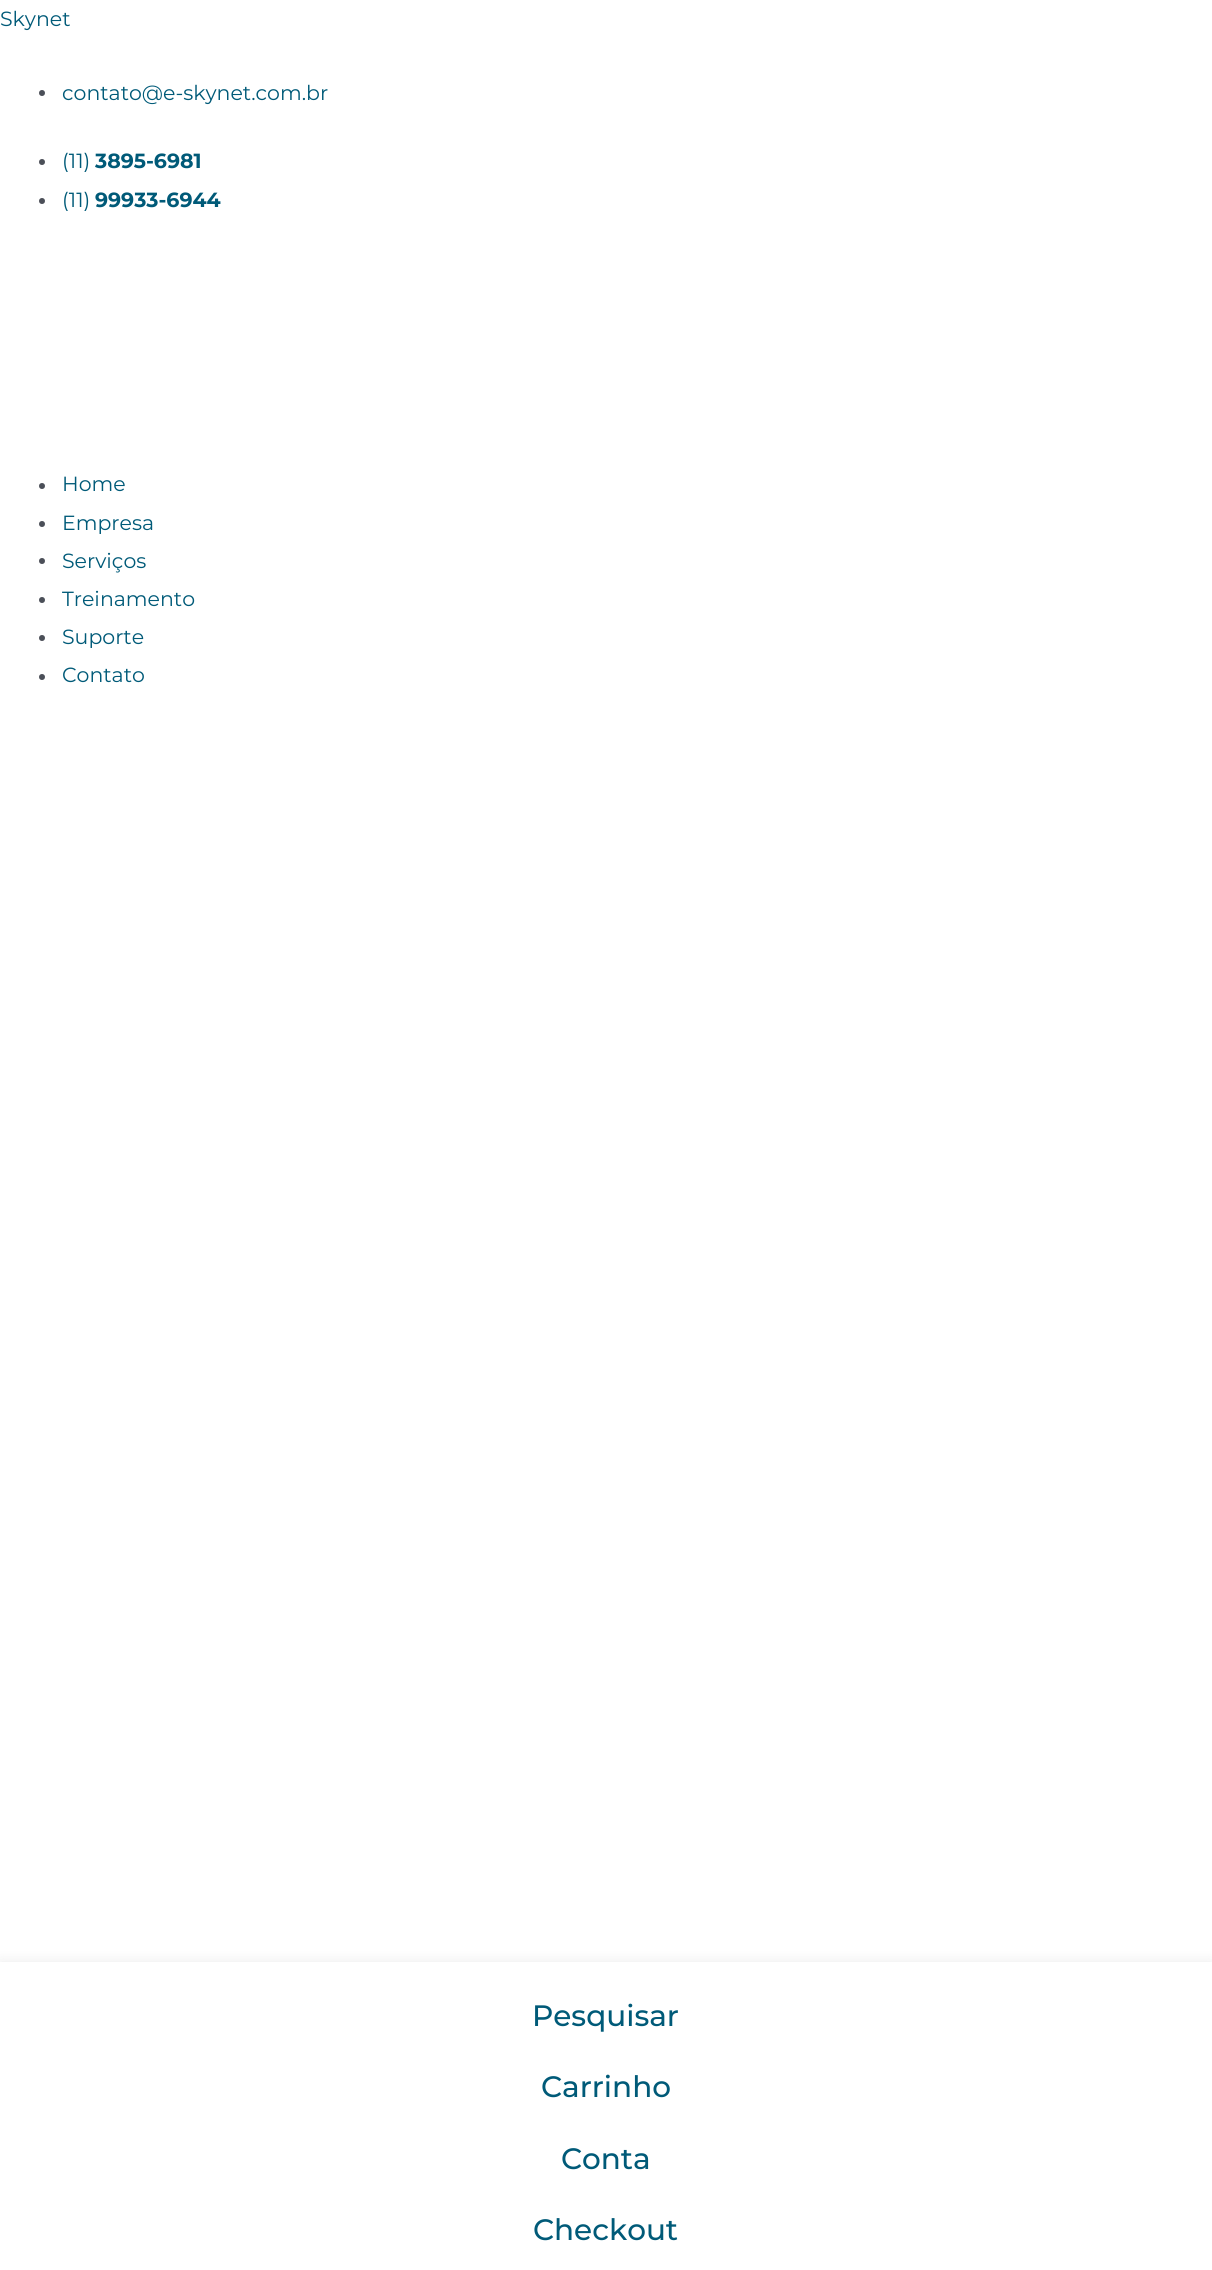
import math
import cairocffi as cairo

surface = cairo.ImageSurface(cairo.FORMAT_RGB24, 1212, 2270)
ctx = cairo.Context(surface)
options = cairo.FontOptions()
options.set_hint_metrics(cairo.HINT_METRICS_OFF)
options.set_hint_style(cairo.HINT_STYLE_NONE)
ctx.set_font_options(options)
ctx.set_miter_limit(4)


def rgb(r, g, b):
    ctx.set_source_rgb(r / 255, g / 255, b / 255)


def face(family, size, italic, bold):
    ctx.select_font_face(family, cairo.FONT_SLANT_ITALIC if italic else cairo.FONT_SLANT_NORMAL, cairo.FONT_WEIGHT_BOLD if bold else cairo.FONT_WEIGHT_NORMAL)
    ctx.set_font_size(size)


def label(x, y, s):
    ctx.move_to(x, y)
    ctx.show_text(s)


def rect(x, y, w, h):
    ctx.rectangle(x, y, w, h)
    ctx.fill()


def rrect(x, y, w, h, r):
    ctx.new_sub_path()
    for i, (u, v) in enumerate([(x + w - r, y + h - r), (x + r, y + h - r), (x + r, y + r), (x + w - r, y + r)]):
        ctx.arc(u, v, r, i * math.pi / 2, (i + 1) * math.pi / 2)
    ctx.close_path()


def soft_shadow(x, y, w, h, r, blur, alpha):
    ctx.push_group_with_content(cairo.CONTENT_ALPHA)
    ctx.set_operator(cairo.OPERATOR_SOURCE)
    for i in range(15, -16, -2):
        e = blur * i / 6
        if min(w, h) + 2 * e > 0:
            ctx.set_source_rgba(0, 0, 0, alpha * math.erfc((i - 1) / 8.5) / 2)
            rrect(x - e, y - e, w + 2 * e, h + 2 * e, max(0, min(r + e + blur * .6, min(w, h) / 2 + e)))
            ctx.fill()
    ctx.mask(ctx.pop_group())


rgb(255, 255, 255)
ctx.paint()
face('Montserrat', 20.5, 0, 0)
rgb(0, 90, 120)
label(0, 26, 'Skynet')
rgb(75, 79, 88)
ctx.new_path()
ctx.arc(42, 93, 3, 0, 2 * math.pi)
ctx.fill()
rgb(0, 90, 120)
label(62, 100, 'contato@e-skynet.com.br')
rgb(75, 79, 88)
ctx.new_path()
ctx.arc(42, 162, 3, 0, 2 * math.pi)
ctx.fill()
rgb(0, 90, 120)
label(62, 168, '(11)')
face('Montserrat', 20.5, 0, 1)
label(95, 168, '3895-6981')
rgb(75, 79, 88)
ctx.new_path()
ctx.arc(42, 201, 3, 0, 2 * math.pi)
ctx.fill()
face('Montserrat', 20.5, 0, 0)
rgb(0, 90, 120)
label(62, 207, '(11)')
face('Montserrat', 20.5, 0, 1)
label(95, 207, '99933-6944')
rgb(75, 79, 88)
ctx.new_path()
ctx.arc(42, 486, 3, 0, 2 * math.pi)
ctx.fill()
face('Montserrat', 20.5, 0, 0)
rgb(0, 90, 120)
label(62, 491, 'Home')
rgb(75, 79, 88)
ctx.new_path()
ctx.arc(42, 524, 3, 0, 2 * math.pi)
ctx.fill()
rgb(0, 90, 120)
label(62, 530, 'Empresa')
rgb(75, 79, 88)
ctx.new_path()
ctx.arc(42, 561, 3, 0, 2 * math.pi)
ctx.fill()
rgb(0, 90, 120)
label(62, 568, 'Serviços')
rgb(75, 79, 88)
ctx.new_path()
ctx.arc(42, 600, 3, 0, 2 * math.pi)
ctx.fill()
rgb(0, 90, 120)
label(62, 606, 'Treinamento')
rgb(75, 79, 88)
ctx.new_path()
ctx.arc(42, 638, 3, 0, 2 * math.pi)
ctx.fill()
rgb(0, 90, 120)
label(62, 644, 'Suporte')
rgb(75, 79, 88)
ctx.new_path()
ctx.arc(42, 677, 3, 0, 2 * math.pi)
ctx.fill()
rgb(0, 90, 120)
label(62, 682, 'Contato')
rgb(0, 0, 0)
soft_shadow(0, 1962, 1212, 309, 0, 7.5, 0.08)
rgb(255, 255, 255)
rect(0, 1962, 1212, 308)
face('Montserrat Medium', 29.5, 0, 0)
rgb(0, 90, 120)
label(532, 2026, 'Pesquisar')
label(541, 2097, 'Carrinho')
label(561, 2169, 'Conta')
label(533, 2240, 'Checkout')
surface.write_to_png('render.png')
